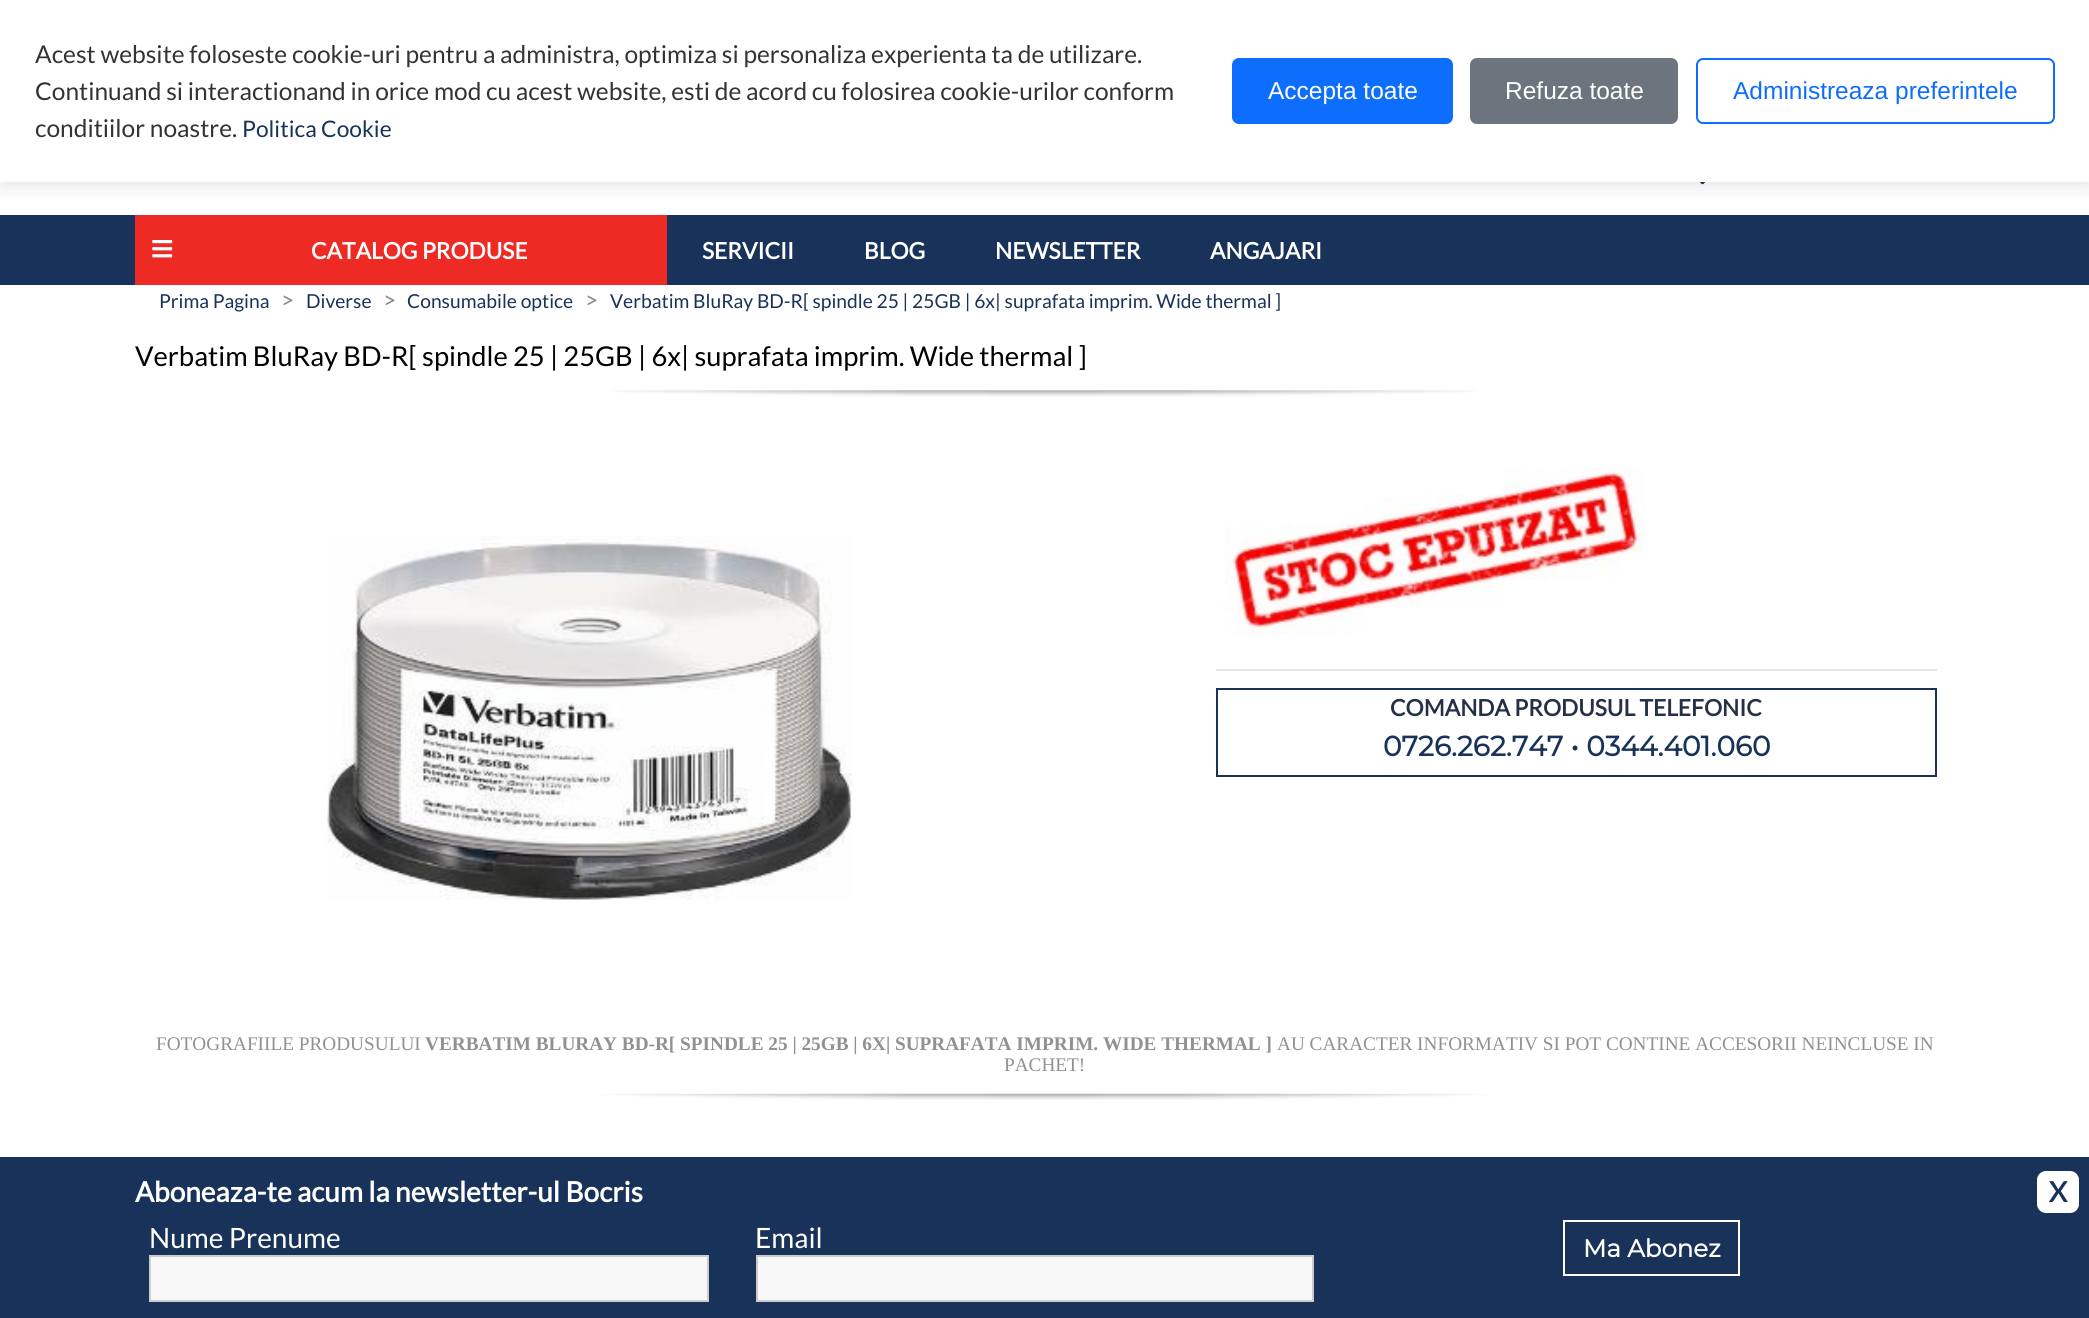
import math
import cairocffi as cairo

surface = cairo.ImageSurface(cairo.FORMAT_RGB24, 2089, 1318)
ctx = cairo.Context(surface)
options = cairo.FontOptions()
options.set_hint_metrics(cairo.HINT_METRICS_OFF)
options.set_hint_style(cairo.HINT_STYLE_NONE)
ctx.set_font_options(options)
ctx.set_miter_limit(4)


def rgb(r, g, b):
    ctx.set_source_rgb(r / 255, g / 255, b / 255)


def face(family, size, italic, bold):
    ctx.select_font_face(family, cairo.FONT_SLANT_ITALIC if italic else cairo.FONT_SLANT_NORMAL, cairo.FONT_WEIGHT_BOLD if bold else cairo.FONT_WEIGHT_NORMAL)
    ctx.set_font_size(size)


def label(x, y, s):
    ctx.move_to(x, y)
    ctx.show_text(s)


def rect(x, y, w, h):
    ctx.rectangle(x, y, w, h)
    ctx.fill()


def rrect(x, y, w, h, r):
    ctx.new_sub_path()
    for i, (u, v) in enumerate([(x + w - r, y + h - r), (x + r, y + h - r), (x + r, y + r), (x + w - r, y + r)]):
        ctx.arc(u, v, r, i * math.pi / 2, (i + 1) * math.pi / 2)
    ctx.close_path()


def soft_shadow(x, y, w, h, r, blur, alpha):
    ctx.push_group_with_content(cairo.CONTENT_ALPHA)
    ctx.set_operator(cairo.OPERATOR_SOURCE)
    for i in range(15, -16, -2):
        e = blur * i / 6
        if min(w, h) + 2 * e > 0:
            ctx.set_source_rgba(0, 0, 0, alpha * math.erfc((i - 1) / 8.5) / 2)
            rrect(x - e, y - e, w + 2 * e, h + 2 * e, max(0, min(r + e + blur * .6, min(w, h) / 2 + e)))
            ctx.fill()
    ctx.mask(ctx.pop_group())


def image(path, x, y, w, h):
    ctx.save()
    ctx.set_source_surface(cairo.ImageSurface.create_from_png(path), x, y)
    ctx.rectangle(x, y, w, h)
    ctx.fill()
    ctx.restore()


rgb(255, 255, 255)
ctx.paint()
image('image0.png', 1699, 182, 7, 3)
rgb(0, 0, 0)
soft_shadow(0, 4, 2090, 182, 0, 9, 0.1)
rgb(255, 255, 255)
rect(0, 0, 2089, 182)
face('Lato', 24.5, 0, 0)
rgb(51, 51, 51)
label(35, 63, 'Acest website foloseste cookie-uri pentru a administra, optimiza si personaliza experienta ta de utilizare.')
label(35, 100, 'Continuand si interactionand in orice mod cu acest website, esti de acord cu folosirea cookie-urilor conform')
label(35, 137, 'conditiilor noastre.')
face('Lato', 22.75, 0, 0)
rgb(24, 50, 89)
label(242, 137, 'Politica Cookie')
rgb(13, 110, 253)
rrect(1232, 58, 221, 66, 7)
ctx.fill()
face('Liberation Sans', 24.5, 0, 0)
rgb(255, 255, 255)
label(1268, 99, 'Accepta toate')
rgb(108, 117, 125)
rrect(1470, 58, 208, 66, 7)
ctx.fill()
rgb(255, 255, 255)
label(1505, 99, 'Refuza toate')
rrect(1697, 59, 357, 64, 6)
rgb(13, 110, 253)
ctx.stroke()
label(1733, 99, 'Administreaza preferintele')
rgb(24, 50, 89)
rect(0, 215, 2089, 70)
rgb(238, 42, 36)
rect(135, 215, 532, 70)
image('image1.png', 152, 240, 21, 18)
face('Lato', 22.75, 0, 1)
rgb(255, 255, 255)
label(311, 259, 'CATALOG PRODUSE')
label(702, 259, 'SERVICII')
label(864, 259, 'BLOG')
label(995, 259, 'NEWSLETTER')
label(1210, 259, 'ANGAJARI')
face('Lato', 19.25, 0, 0)
rgb(24, 50, 89)
label(159, 308, 'Prima Pagina')
face('Lato', 22.75, 0, 0)
rgb(136, 136, 136)
label(281, 308, '>')
face('Lato', 19.25, 0, 0)
rgb(24, 50, 89)
label(306, 308, 'Diverse')
face('Lato', 22.75, 0, 0)
rgb(136, 136, 136)
label(383, 308, '>')
face('Lato', 19.25, 0, 0)
rgb(24, 50, 89)
label(407, 308, 'Consumabile optice')
face('Lato', 22.75, 0, 0)
rgb(136, 136, 136)
label(585, 308, '>')
face('Lato', 19.25, 0, 0)
rgb(24, 50, 89)
label(610, 308, 'Verbatim BluRay BD-R[ spindle 25 | 25GB | 6x| suprafata imprim. Wide thermal ]')
image('image2.png', 599, 1093, 889, 7)
image('image3.png', 614, 390, 860, 7)
face('Lato', 27.3, 0, 0)
rgb(0, 0, 0)
label(135, 366, 'Verbatim BluRay BD-R[ spindle 25 | 25GB | 6x| suprafata imprim. Wide thermal ]')
image('image4.png', 327, 536, 526, 364)
rgb(231, 231, 231)
rect(1216, 669, 721, 2)
image('image5.png', 1225, 467, 420, 169)
ctx.rectangle(1217, 689, 719, 87)
rgb(24, 50, 89)
ctx.stroke()
face('Lato', 22.75, 0, 1)
rgb(37, 47, 71)
label(1390, 716, 'COMANDA PRODUSUL TELEFONIC')
face('Montserrat', 28, 0, 1)
rgb(24, 50, 89)
label(1383, 756, '0726.262.747 • 0344.401.060')
face('Liberation Serif', 19.25, 0, 0)
rgb(145, 145, 145)
label(156, 1050, 'FOTOGRAFIILE PRODUSULUI')
face('Liberation Serif', 19.25, 0, 1)
label(425, 1050, 'VERBATIM BLURAY BD-R[ SPINDLE 25 | 25GB | 6X| SUPRAFATA IMPRIM. WIDE THERMAL ]')
face('Liberation Serif', 19.25, 0, 0)
label(1277, 1050, 'AU CARACTER INFORMATIV SI POT CONTINE ACCESORII NEINCLUSE IN')
label(1004, 1071, 'PACHET!')
rgb(24, 50, 89)
rect(0, 1157, 2089, 161)
face('Lato', 28, 0, 1)
rgb(255, 255, 255)
label(135, 1202, 'Aboneaza-te acum la newsletter-ul Bocris')
rrect(2037, 1171, 42, 42, 9)
ctx.fill()
rgb(24, 50, 89)
label(2049, 1202, 'X')
face('Lato', 28, 0, 0)
rgb(255, 255, 255)
label(149, 1248, 'Nume Prenume')
rgb(248, 248, 248)
ctx.rectangle(150, 1256, 558, 45)
ctx.fill_preserve()
rgb(204, 204, 204)
ctx.stroke()
rgb(255, 255, 255)
label(755, 1248, 'Email')
rgb(248, 248, 248)
ctx.rectangle(757, 1256, 556, 45)
ctx.fill_preserve()
rgb(204, 204, 204)
ctx.stroke()
ctx.rectangle(1564, 1221, 175, 54)
rgb(255, 255, 255)
ctx.stroke()
face('Montserrat', 24.5, 0, 1)
label(1583, 1257, 'Ma Abonez')
surface.write_to_png('render.png')
